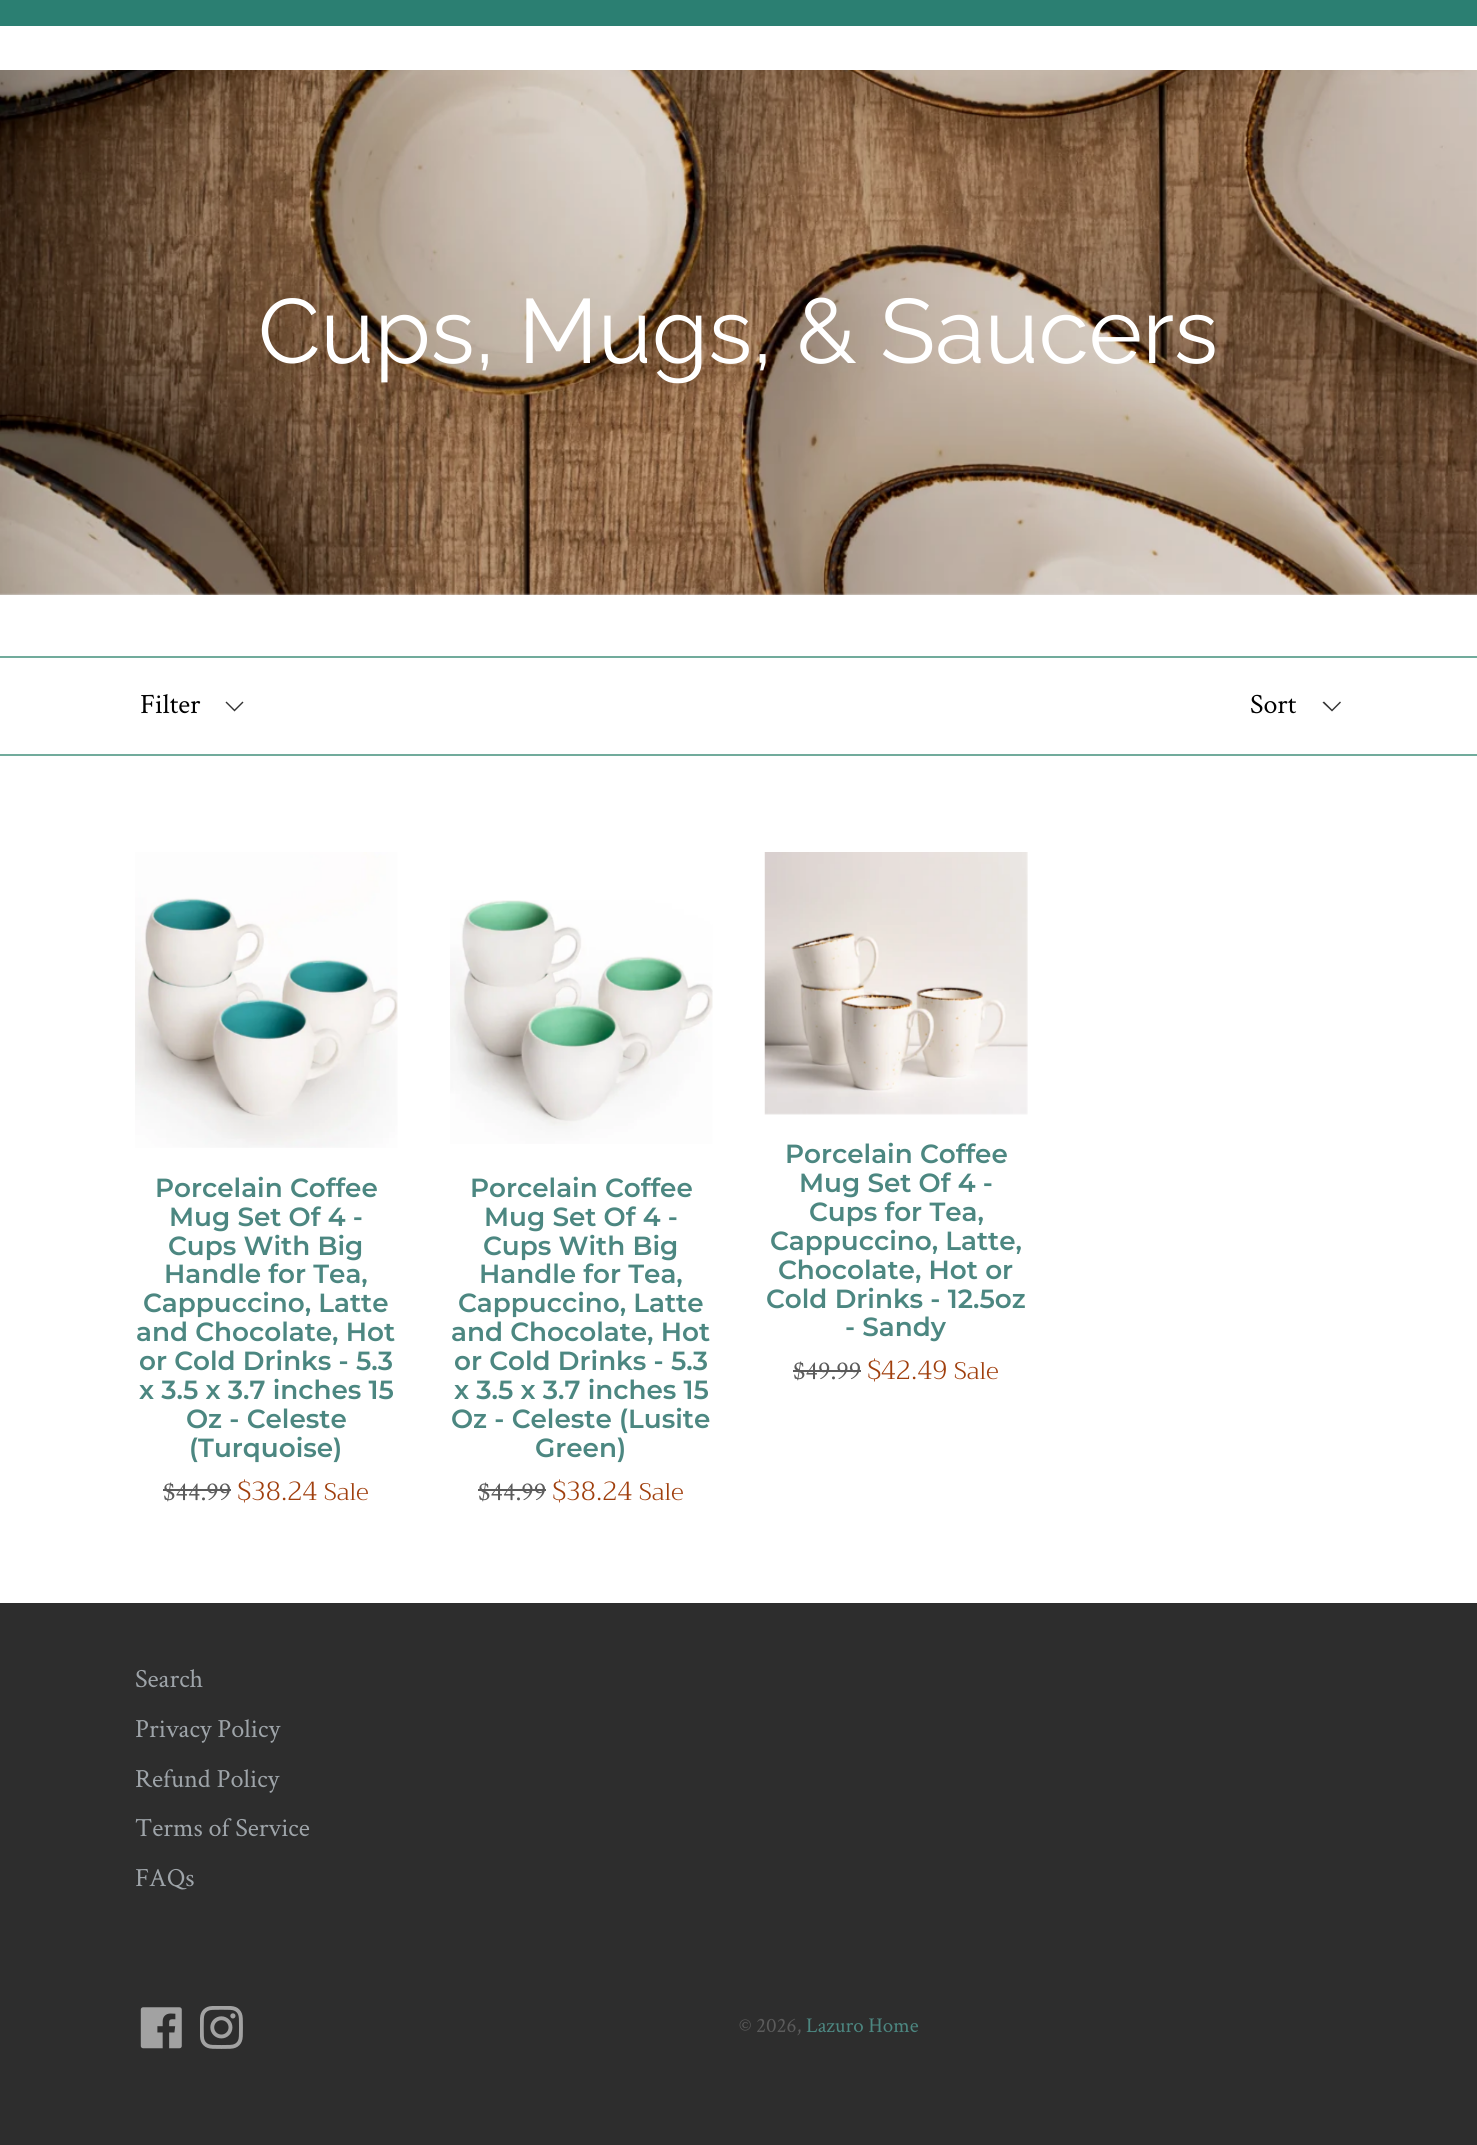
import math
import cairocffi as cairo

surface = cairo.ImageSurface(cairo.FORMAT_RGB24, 1477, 2145)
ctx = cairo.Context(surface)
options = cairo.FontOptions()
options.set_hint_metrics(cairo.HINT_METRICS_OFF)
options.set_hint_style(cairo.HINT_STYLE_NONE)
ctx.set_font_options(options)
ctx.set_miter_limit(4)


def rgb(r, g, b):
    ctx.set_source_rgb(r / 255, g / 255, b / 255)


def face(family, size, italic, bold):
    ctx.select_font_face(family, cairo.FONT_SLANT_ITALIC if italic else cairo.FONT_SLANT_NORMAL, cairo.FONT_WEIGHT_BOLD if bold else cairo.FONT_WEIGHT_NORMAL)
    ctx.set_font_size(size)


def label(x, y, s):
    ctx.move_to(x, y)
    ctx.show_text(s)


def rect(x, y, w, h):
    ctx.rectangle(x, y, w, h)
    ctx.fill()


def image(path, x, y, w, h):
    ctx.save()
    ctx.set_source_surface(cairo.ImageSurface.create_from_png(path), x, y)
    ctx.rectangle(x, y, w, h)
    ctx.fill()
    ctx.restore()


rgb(255, 255, 255)
ctx.paint()
rgb(230, 230, 230)
rect(0, 70, 1477, 525)
rgb(43, 127, 114)
rect(0, 0, 1477, 26)
image('image0.png', 0, 70, 1477, 525)
face('Raleway Thin', 91, 0, 0)
rgb(255, 255, 255)
label(258, 363, 'Cups, Mugs, & Saucers')
rgb(113, 171, 156)
rect(0, 656, 1477, 2)
rect(0, 754, 1477, 2)
rgb(51, 51, 51)
ctx.new_path()
ctx.move_to(234.5, 711.5)
ctx.line_to(225.5, 702.5)
ctx.line_to(226.5, 701.5)
ctx.line_to(234.5, 709.5)
ctx.line_to(242.5, 701.5)
ctx.line_to(243.5, 702.5)
ctx.close_path()
ctx.fill()
face('Crimson Text', 28, 0, 0)
rgb(0, 0, 0)
label(140, 713, 'Filter')
rgb(51, 51, 51)
ctx.new_path()
ctx.move_to(1332, 711.5)
ctx.line_to(1322.5, 702.5)
ctx.line_to(1324, 701.5)
ctx.line_to(1332, 709.5)
ctx.line_to(1340, 701.5)
ctx.line_to(1341, 702.5)
ctx.close_path()
ctx.fill()
rgb(0, 0, 0)
label(1250, 713, 'Sort')
image('image1.png', 135, 852, 263, 296)
face('Montserrat SemiBold', 26.25, 0, 0)
rgb(76, 135, 129)
label(155, 1197, 'Porcelain Coffee')
label(169, 1226, 'Mug Set Of 4 -')
label(168, 1255, 'Cups With Big')
label(164, 1283, 'Handle for Tea,')
label(143, 1312, 'Cappuccino, Latte')
label(136, 1341, 'and Chocolate, Hot')
label(139, 1370, 'or Cold Drinks - 5.3')
label(139, 1399, 'x 3.5 x 3.7 inches 15')
label(186, 1428, 'Oz - Celeste')
label(189, 1457, '(Turquoise)')
face('Crimson Text', 26.25, 0, 0)
rgb(91, 91, 91)
label(163, 1500, '$44.99')
rect(163, 1489, 68, 2)
face('Trirong Light', 26.25, 0, 0)
rgb(160, 63, 13)
label(237, 1500, '$38.24')
face('Trirong Light', 24, 0, 0)
label(324, 1500, 'Sale')
image('image2.png', 450, 900, 263, 244)
face('Montserrat SemiBold', 26.25, 0, 0)
rgb(76, 135, 129)
label(470, 1197, 'Porcelain Coffee')
label(484, 1226, 'Mug Set Of 4 -')
label(483, 1255, 'Cups With Big')
label(479, 1283, 'Handle for Tea,')
label(458, 1312, 'Cappuccino, Latte')
label(451, 1341, 'and Chocolate, Hot')
label(454, 1370, 'or Cold Drinks - 5.3')
label(454, 1399, 'x 3.5 x 3.7 inches 15')
label(451, 1428, 'Oz - Celeste (Lusite')
label(535, 1457, 'Green)')
face('Crimson Text', 26.25, 0, 0)
rgb(91, 91, 91)
label(478, 1500, '$44.99')
rect(478, 1489, 68, 2)
face('Trirong Light', 26.25, 0, 0)
rgb(160, 63, 13)
label(552, 1500, '$38.24')
face('Trirong Light', 24, 0, 0)
label(639, 1500, 'Sale')
image('image3.png', 764, 852, 264, 263)
face('Montserrat SemiBold', 26.25, 0, 0)
rgb(76, 135, 129)
label(785, 1163, 'Porcelain Coffee')
label(799, 1192, 'Mug Set Of 4 -')
label(809, 1221, 'Cups for Tea,')
label(770, 1250, 'Cappuccino, Latte,')
label(778, 1279, 'Chocolate, Hot or')
label(766, 1308, 'Cold Drinks - 12.5oz')
label(845, 1336, '- Sandy')
face('Crimson Text', 26.25, 0, 0)
rgb(91, 91, 91)
label(793, 1379, '$49.99')
rect(793, 1370, 68, 2)
face('Trirong Light', 26.25, 0, 0)
rgb(160, 63, 13)
label(867, 1379, '$42.49')
face('Trirong Light', 24, 0, 0)
label(954, 1379, 'Sale')
rgb(45, 45, 45)
rect(0, 1603, 1477, 542)
face('Crimson Text', 26.25, 0, 0)
rgb(158, 164, 169)
label(135, 1687, 'Search')
label(135, 1737, 'Privacy Policy')
label(135, 1787, 'Refund Policy')
label(135, 1836, 'Terms of Service')
label(135, 1886, 'FAQs')
image('image4.png', 140, 2007, 42, 42)
image('image5.png', 200, 2006, 43, 43)
face('Crimson Text', 21, 0, 0)
rgb(91, 91, 91)
label(739, 2032, '© 2026,')
rgb(76, 135, 129)
label(806, 2032, 'Lazuro Home')
surface.write_to_png('render.png')
